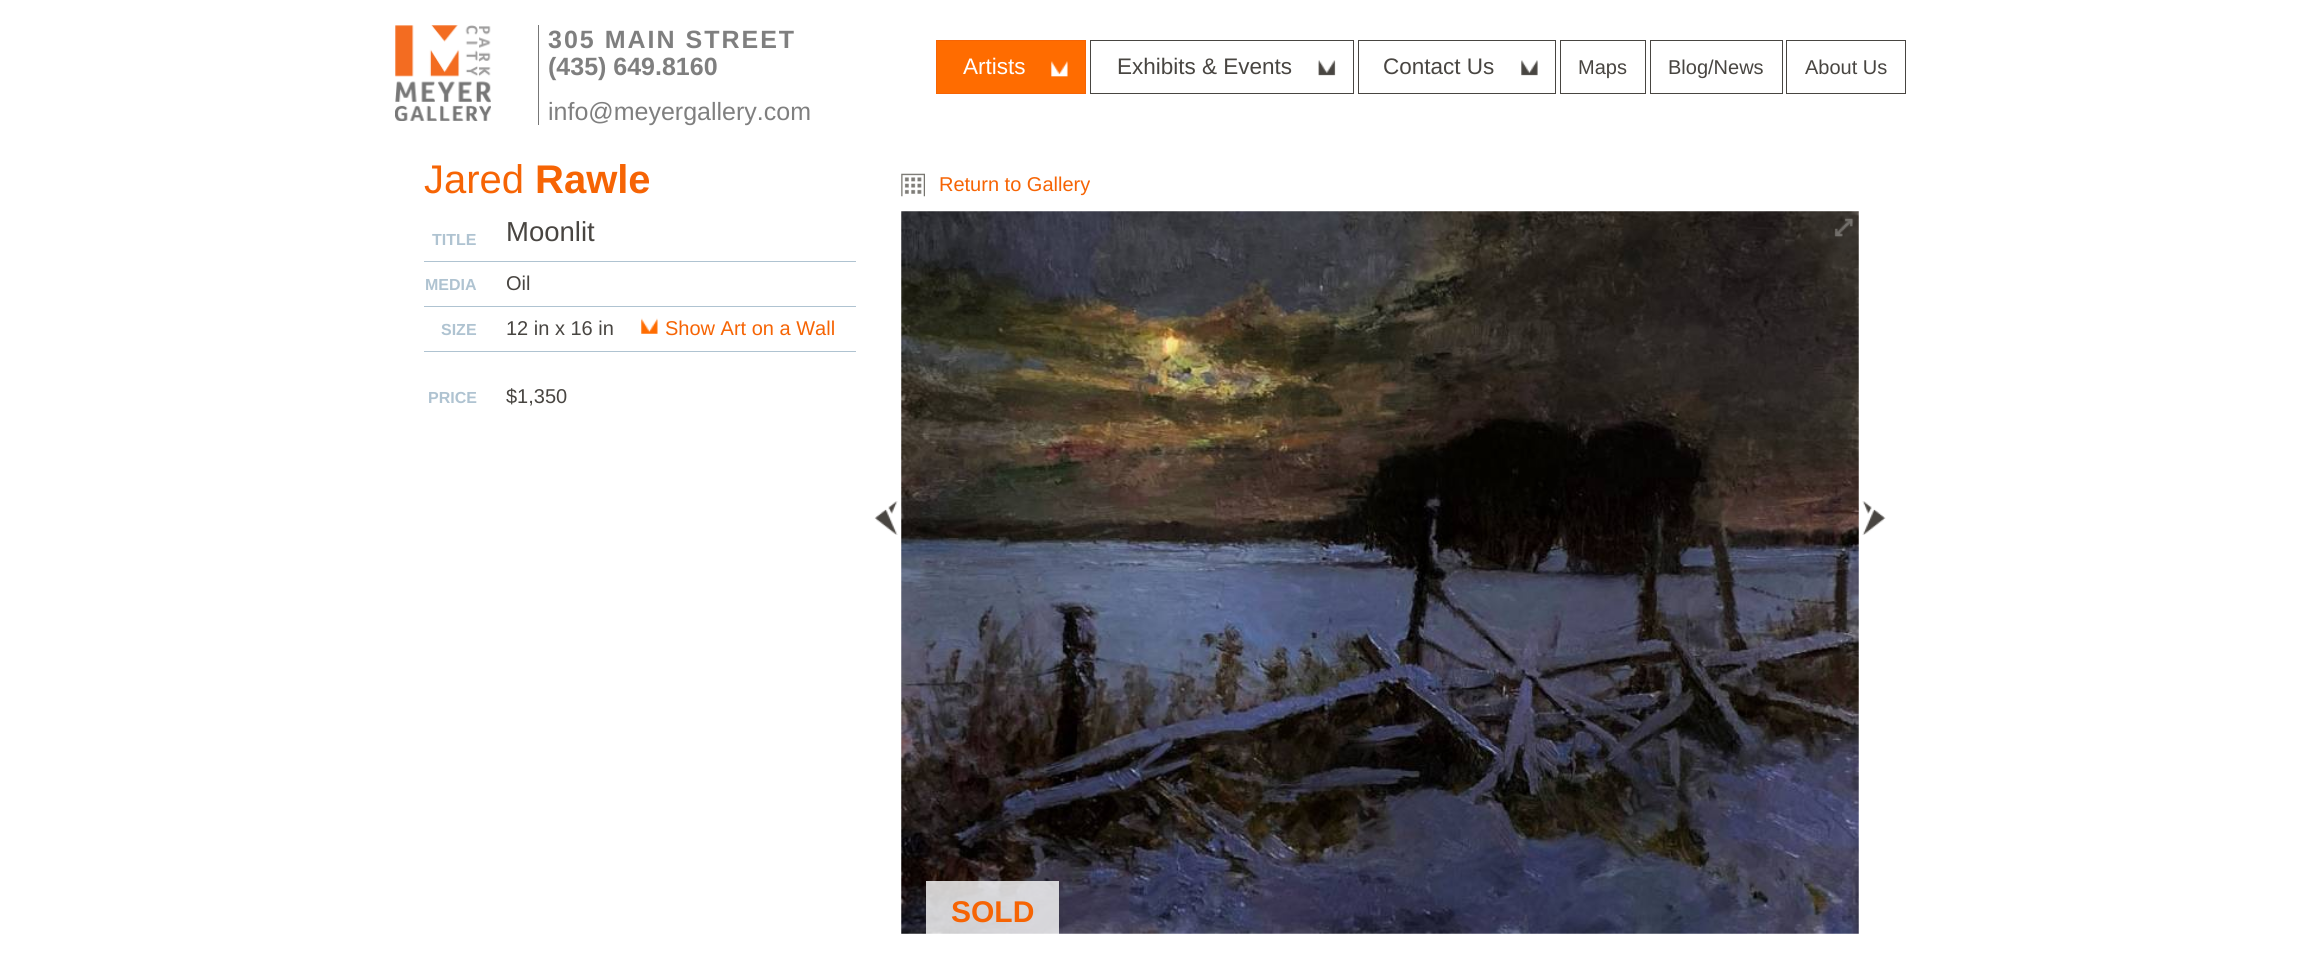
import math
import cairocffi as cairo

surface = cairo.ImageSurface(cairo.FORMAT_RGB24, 2305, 975)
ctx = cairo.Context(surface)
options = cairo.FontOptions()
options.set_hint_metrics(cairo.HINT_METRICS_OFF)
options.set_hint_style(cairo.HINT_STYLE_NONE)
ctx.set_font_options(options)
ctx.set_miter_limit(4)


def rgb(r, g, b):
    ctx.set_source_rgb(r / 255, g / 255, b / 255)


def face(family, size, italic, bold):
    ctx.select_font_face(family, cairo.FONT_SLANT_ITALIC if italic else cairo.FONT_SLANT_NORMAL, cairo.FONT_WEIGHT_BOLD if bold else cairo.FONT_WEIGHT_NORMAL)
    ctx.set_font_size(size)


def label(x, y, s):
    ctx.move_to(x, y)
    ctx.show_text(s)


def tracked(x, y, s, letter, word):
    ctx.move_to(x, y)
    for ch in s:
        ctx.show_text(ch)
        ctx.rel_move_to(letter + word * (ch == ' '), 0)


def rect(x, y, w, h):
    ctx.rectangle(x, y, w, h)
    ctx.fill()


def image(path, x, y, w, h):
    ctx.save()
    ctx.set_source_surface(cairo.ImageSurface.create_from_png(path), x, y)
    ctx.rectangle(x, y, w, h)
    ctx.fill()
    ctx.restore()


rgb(255, 255, 255)
ctx.paint()
rgb(119, 119, 119)
rect(538, 25, 1, 100)
image('image0.png', 395, 25, 96, 96)
face('Liberation Sans', 25, 0, 1)
rgb(127, 127, 127)
tracked(548, 48, '305 MAIN STREET', 2, 0)
label(548, 75, '(435) 649.8160')
face('Liberation Sans', 25, 0, 0)
label(548, 120, 'info@meyergallery.com')
image('image1.png', 937, 41, 148, 52)
ctx.rectangle(936.5, 40.5, 149, 53)
rgb(246, 100, 4)
ctx.set_line_width(1)
ctx.stroke()
face('Liberation Sans', 22.5, 0, 0)
rgb(255, 255, 255)
label(963, 74, 'Artists')
image('image2.png', 1318, 60, 18, 16)
ctx.rectangle(1090.5, 40.5, 263, 53)
rgb(72, 69, 65)
ctx.stroke()
label(1117, 74, 'Exhibits & Events')
image('image3.png', 1521, 60, 17, 16)
ctx.rectangle(1358.5, 40.5, 197, 53)
ctx.stroke()
label(1383, 74, 'Contact Us')
ctx.rectangle(1560.5, 40.5, 85, 53)
ctx.stroke()
face('Liberation Sans', 20, 0, 0)
label(1578, 74, 'Maps')
ctx.rectangle(1650.5, 40.5, 132, 53)
ctx.stroke()
label(1668, 74, 'Blog/News')
ctx.rectangle(1786.5, 40.5, 119, 53)
ctx.stroke()
label(1805, 74, 'About Us')
face('Liberation Sans', 40, 0, 0)
rgb(246, 100, 4)
label(424, 193, 'Jared')
face('Liberation Sans', 40, 0, 1)
label(535, 193, 'Rawle')
rgb(175, 195, 209)
rect(424, 261, 432, 1)
face('Liberation Sans', 16, 0, 1)
label(432, 245, 'TITLE')
face('Liberation Sans', 27.5, 0, 0)
rgb(72, 69, 65)
label(506, 241, 'Moonlit')
rgb(175, 195, 209)
rect(424, 306, 432, 1)
face('Liberation Sans', 16, 0, 1)
label(425, 290, 'MEDIA')
face('Liberation Sans', 20, 0, 0)
rgb(72, 69, 65)
label(506, 290, 'Oil')
rgb(175, 195, 209)
rect(424, 351, 432, 1)
face('Liberation Sans', 16, 0, 1)
label(441, 335, 'SIZE')
face('Liberation Sans', 20, 0, 0)
rgb(72, 69, 65)
label(506, 335, '12 in x 16 in')
image('image4.png', 641, 318, 17, 16)
rgb(246, 100, 4)
label(665, 335, 'Show Art on a Wall')
face('Liberation Sans', 16, 0, 1)
rgb(175, 195, 209)
label(428, 403, 'PRICE')
face('Liberation Sans', 20, 0, 0)
rgb(72, 69, 65)
label(506, 403, '$1,350')
image('image5.png', 901, 173, 24, 24)
rgb(246, 100, 4)
label(939, 191, 'Return to Gallery')
image('image6.png', 901, 211, 958, 723)
image('image7.png', 1810, 212, 48, 42)
image('image8.png', 874, 501, 24, 34)
image('image9.png', 1862, 501, 24, 34)
ctx.set_source_rgba(1, 1, 1, 0.8)
rect(926, 881, 133, 53)
face('Liberation Sans', 30, 0, 1)
rgb(246, 100, 4)
label(951, 922, 'SOLD')
surface.write_to_png('render.png')
